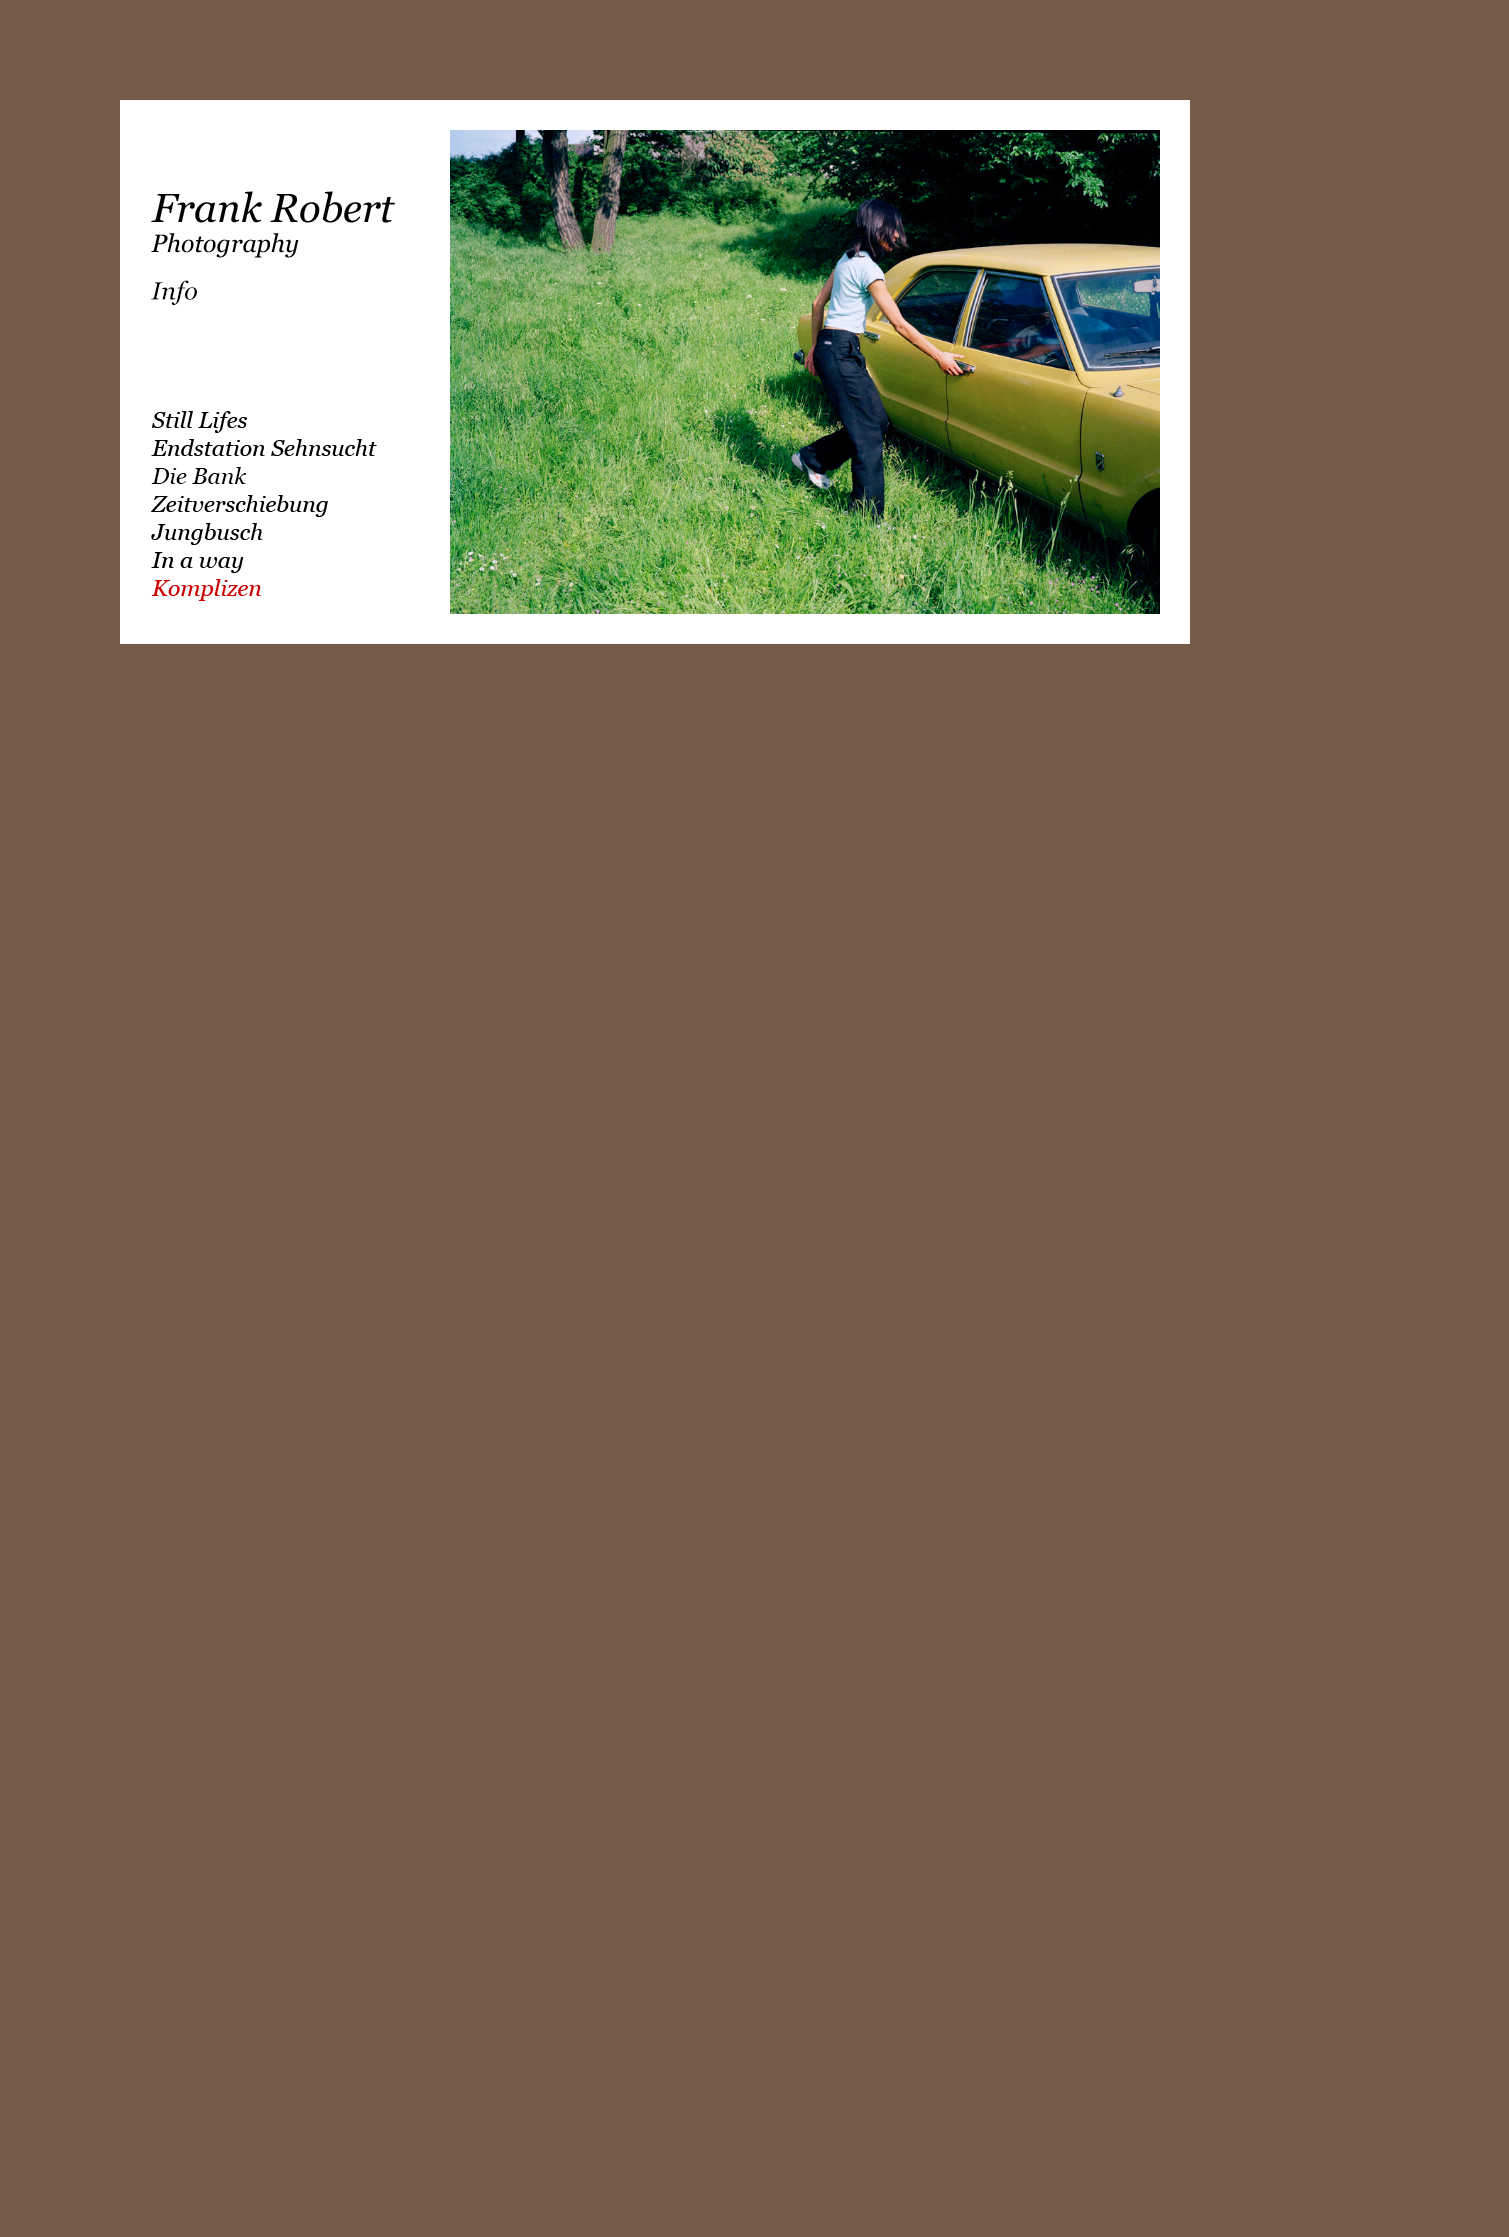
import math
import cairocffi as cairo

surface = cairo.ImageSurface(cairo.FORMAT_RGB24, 1509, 2237)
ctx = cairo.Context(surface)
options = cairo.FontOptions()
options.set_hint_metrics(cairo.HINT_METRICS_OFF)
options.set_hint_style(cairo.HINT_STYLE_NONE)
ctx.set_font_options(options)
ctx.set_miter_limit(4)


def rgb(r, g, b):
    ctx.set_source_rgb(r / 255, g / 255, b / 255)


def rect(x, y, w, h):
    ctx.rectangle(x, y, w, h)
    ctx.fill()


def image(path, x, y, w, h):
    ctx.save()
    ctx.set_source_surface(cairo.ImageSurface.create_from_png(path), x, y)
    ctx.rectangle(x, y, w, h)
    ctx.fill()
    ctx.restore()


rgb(117, 90, 74)
ctx.paint()
rgb(255, 255, 255)
rect(120, 100, 1070, 544)
image('image0.png', 151, 191, 244, 67)
image('image1.png', 151, 280, 46, 25)
image('image2.png', 450, 130, 710, 484)
image('image3.png', 152, 411, 95, 22)
image('image4.png', 151, 439, 226, 17)
image('image5.png', 151, 467, 96, 17)
image('image6.png', 151, 495, 177, 22)
image('image7.png', 151, 523, 112, 22)
image('image8.png', 151, 552, 93, 21)
image('image9.png', 151, 579, 111, 22)
surface.write_to_png('render.png')
